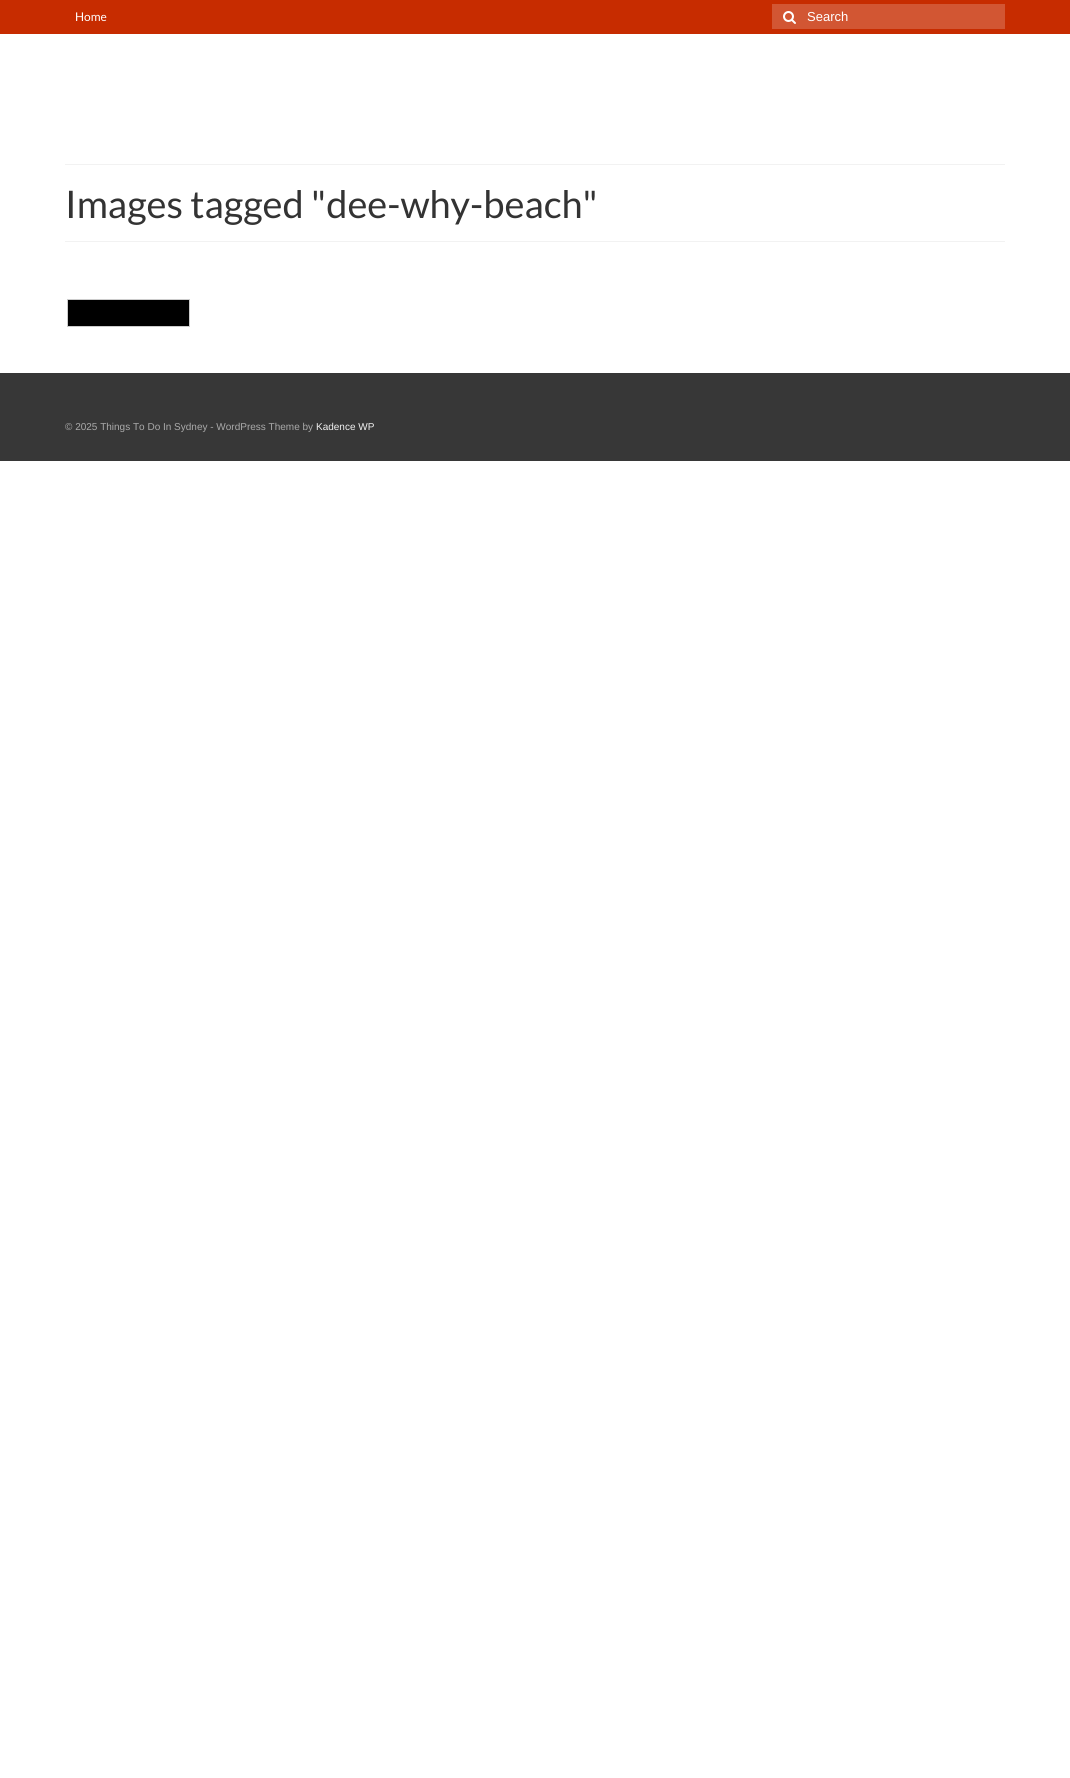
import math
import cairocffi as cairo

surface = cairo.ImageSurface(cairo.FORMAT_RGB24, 1070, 1778)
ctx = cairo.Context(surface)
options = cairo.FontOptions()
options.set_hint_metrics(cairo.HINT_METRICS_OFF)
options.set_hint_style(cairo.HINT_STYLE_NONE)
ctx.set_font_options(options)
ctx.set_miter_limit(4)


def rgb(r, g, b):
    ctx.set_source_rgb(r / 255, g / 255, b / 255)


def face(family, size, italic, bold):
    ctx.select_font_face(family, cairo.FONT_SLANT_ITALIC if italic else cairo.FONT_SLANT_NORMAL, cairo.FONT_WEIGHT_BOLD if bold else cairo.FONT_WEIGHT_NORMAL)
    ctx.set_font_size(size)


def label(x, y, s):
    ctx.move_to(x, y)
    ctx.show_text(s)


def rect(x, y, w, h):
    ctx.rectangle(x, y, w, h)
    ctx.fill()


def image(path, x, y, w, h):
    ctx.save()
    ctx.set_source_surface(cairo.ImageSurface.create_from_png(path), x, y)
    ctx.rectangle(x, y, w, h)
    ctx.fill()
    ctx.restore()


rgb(255, 255, 255)
ctx.paint()
rgb(199, 44, 0)
rect(0, 0, 1070, 34)
face('Lato', 12, 0, 0)
rgb(255, 255, 255)
label(75, 21, 'Home')
rgb(210, 86, 51)
rect(772, 4, 233, 25)
image('image0.png', 783, 11, 13, 13)
face('Liberation Sans', 13, 0, 0)
rgb(255, 255, 255)
label(807, 21, 'Search')
rgb(242, 242, 242)
rect(65, 164, 940, 1)
rect(65, 241, 940, 1)
face('Lato', 38, 0, 0)
rgb(51, 51, 51)
label(65, 218, 'Images tagged "dee-why-beach"')
rgb(0, 0, 0)
ctx.rectangle(67.5, 299.5, 122, 27)
ctx.fill_preserve()
rgb(204, 204, 204)
ctx.set_line_width(1)
ctx.stroke()
rgb(55, 55, 55)
rect(0, 373, 1070, 88)
face('Liberation Sans', 10, 0, 0)
rgb(170, 170, 170)
label(65, 430, '© 2025 Things To Do In Sydney - WordPress Theme by')
rgb(242, 242, 242)
label(316, 430, 'Kadence WP')
surface.write_to_png('render.png')
